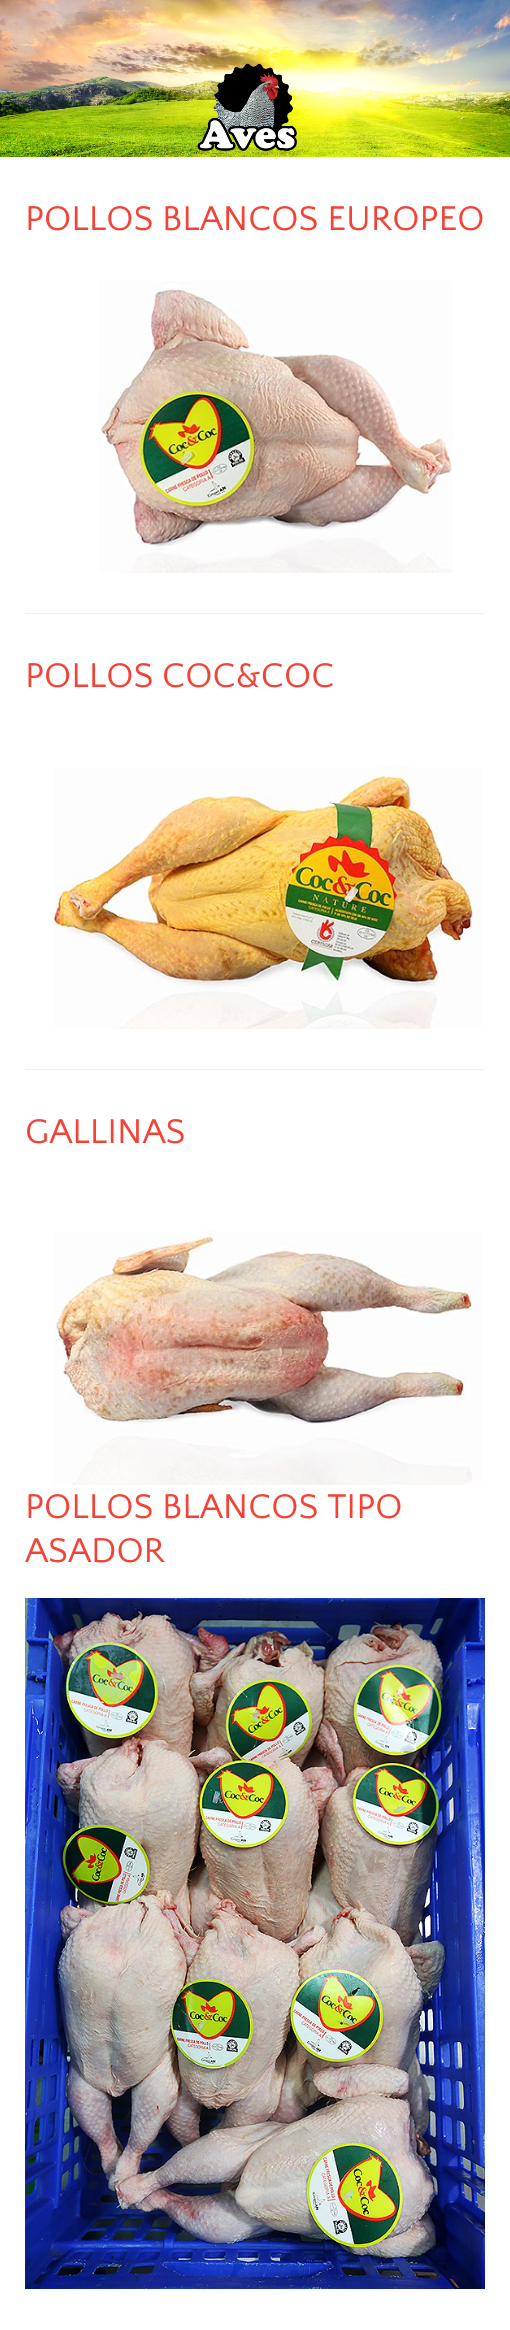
import math
import cairocffi as cairo

surface = cairo.ImageSurface(cairo.FORMAT_RGB24, 510, 2330)
ctx = cairo.Context(surface)
options = cairo.FontOptions()
options.set_hint_metrics(cairo.HINT_METRICS_OFF)
options.set_hint_style(cairo.HINT_STYLE_NONE)
ctx.set_font_options(options)
ctx.set_miter_limit(4)


def rgb(r, g, b):
    ctx.set_source_rgb(r / 255, g / 255, b / 255)


def face(family, size, italic, bold):
    ctx.select_font_face(family, cairo.FONT_SLANT_ITALIC if italic else cairo.FONT_SLANT_NORMAL, cairo.FONT_WEIGHT_BOLD if bold else cairo.FONT_WEIGHT_NORMAL)
    ctx.set_font_size(size)


def label(x, y, s):
    ctx.move_to(x, y)
    ctx.show_text(s)


def rect(x, y, w, h):
    ctx.rectangle(x, y, w, h)
    ctx.fill()


def image(path, x, y, w, h):
    ctx.save()
    ctx.set_source_surface(cairo.ImageSurface.create_from_png(path), x, y)
    ctx.rectangle(x, y, w, h)
    ctx.fill()
    ctx.restore()


rgb(255, 255, 255)
ctx.paint()
image('image0.png', 0, 0, 510, 157)
face('Quattrocento Sans', 36, 0, 0)
rgb(244, 67, 54)
label(25, 230, 'POLLOS BLANCOS EUROPEO')
image('image1.png', 98, 281, 355, 292)
rgb(240, 240, 240)
rect(25, 613, 460, 1)
rgb(244, 67, 54)
label(25, 687, 'POLLOS COC&COC')
image('image2.png', 53, 767, 429, 262)
rgb(240, 240, 240)
rect(25, 1069, 460, 1)
rgb(244, 67, 54)
label(25, 1143, 'GALLINAS')
image('image3.png', 54, 1231, 428, 254)
label(25, 1518, 'POLLOS BLANCOS TIPO')
label(25, 1562, 'ASADOR')
image('image4.png', 25, 1598, 460, 691)
surface.write_to_png('render.png')
